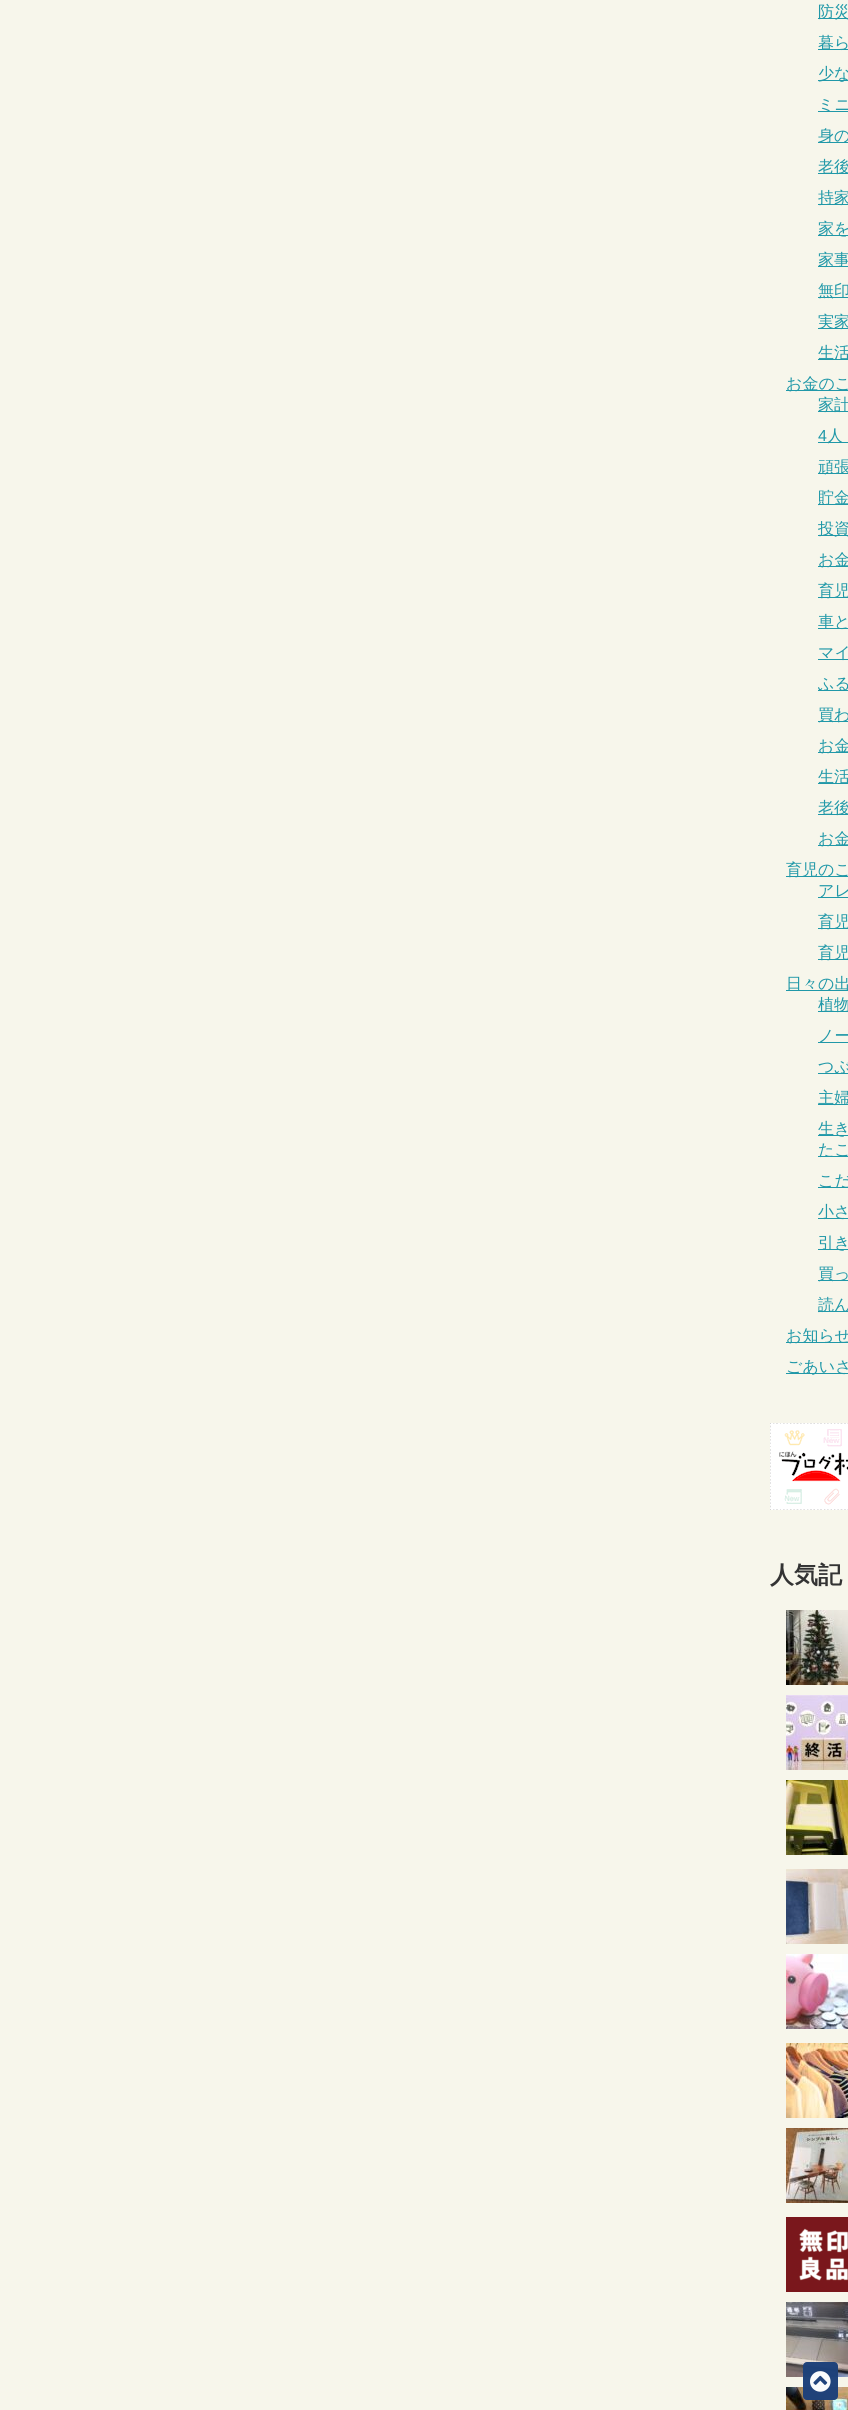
import math
import cairocffi as cairo

surface = cairo.ImageSurface(cairo.FORMAT_RGB24, 848, 2410)
ctx = cairo.Context(surface)
options = cairo.FontOptions()
options.set_hint_metrics(cairo.HINT_METRICS_OFF)
options.set_hint_style(cairo.HINT_STYLE_NONE)
ctx.set_font_options(options)
ctx.set_miter_limit(4)


def rgb(r, g, b):
    ctx.set_source_rgb(r / 255, g / 255, b / 255)


def face(family, size, italic, bold):
    ctx.select_font_face(family, cairo.FONT_SLANT_ITALIC if italic else cairo.FONT_SLANT_NORMAL, cairo.FONT_WEIGHT_BOLD if bold else cairo.FONT_WEIGHT_NORMAL)
    ctx.set_font_size(size)


def label(x, y, s):
    ctx.move_to(x, y)
    ctx.show_text(s)


def rect(x, y, w, h):
    ctx.rectangle(x, y, w, h)
    ctx.fill()


def rrect(x, y, w, h, r):
    ctx.new_sub_path()
    for i, (u, v) in enumerate([(x + w - r, y + h - r), (x + r, y + h - r), (x + r, y + r), (x + w - r, y + r)]):
        ctx.arc(u, v, r, i * math.pi / 2, (i + 1) * math.pi / 2)
    ctx.close_path()


def image(path, x, y, w, h):
    ctx.save()
    ctx.set_source_surface(cairo.ImageSurface.create_from_png(path), x, y)
    ctx.rectangle(x, y, w, h)
    ctx.fill()
    ctx.restore()


rgb(247, 246, 235)
ctx.paint()
rgb(32, 152, 168)
rect(818, 18, 30, 1)
face('WenQuanYi Zen Hei Medium', 16, 0, 0)
label(818, 17, '防災')
rect(818, 49, 30, 1)
label(818, 48, '暮ら')
rect(818, 80, 30, 1)
label(818, 79, '少な')
rect(818, 111, 30, 1)
label(818, 110, 'ミニ')
rect(818, 142, 30, 1)
label(818, 141, '身の')
rect(818, 173, 30, 1)
label(818, 172, '老後')
rect(818, 204, 30, 1)
label(818, 203, '持家')
rect(818, 235, 30, 1)
label(818, 234, '家を')
rect(818, 266, 30, 1)
label(818, 265, '家事')
rect(818, 297, 30, 1)
label(818, 296, '無印')
rect(818, 328, 30, 1)
label(818, 327, '実家')
rect(818, 359, 30, 1)
label(818, 358, '生活')
rect(786, 390, 62, 1)
label(786, 389, 'お金のこ')
rect(818, 411, 30, 1)
label(818, 410, '家計')
face('Liberation Sans', 16, 0, 0)
label(818, 441, '4')
rect(818, 442, 30, 1)
face('WenQuanYi Zen Hei Medium', 16, 0, 0)
label(827, 441, '人')
rect(818, 473, 30, 1)
label(818, 472, '頑張')
rect(818, 504, 30, 1)
label(818, 503, '貯金')
rect(818, 535, 30, 1)
label(818, 534, '投資')
rect(818, 566, 30, 1)
label(818, 565, 'お金')
rect(818, 597, 30, 1)
label(818, 596, '育児')
rect(818, 628, 30, 1)
label(818, 627, '車と')
rect(818, 659, 30, 1)
label(818, 658, 'マイ')
rect(818, 690, 30, 1)
label(818, 689, 'ふる')
rect(818, 721, 30, 1)
label(818, 720, '買わ')
rect(818, 752, 30, 1)
label(818, 751, 'お金')
rect(818, 783, 30, 1)
label(818, 782, '生活')
rect(818, 814, 30, 1)
label(818, 813, '老後')
rect(818, 845, 30, 1)
label(818, 844, 'お金')
rect(786, 876, 62, 1)
label(786, 875, '育児のこ')
rect(818, 897, 30, 1)
label(818, 896, 'アレ')
rect(818, 928, 30, 1)
label(818, 927, '育児')
rect(818, 959, 30, 1)
label(818, 958, '育児')
rect(786, 990, 62, 1)
label(786, 989, '日々の出')
rect(818, 1011, 30, 1)
label(818, 1010, '植物')
rect(818, 1042, 30, 1)
label(818, 1041, 'ノー')
rect(818, 1073, 30, 1)
label(818, 1072, 'つぶ')
rect(818, 1104, 30, 1)
label(818, 1103, '主婦')
rect(818, 1135, 30, 1)
label(818, 1134, '生き')
rect(818, 1156, 30, 1)
label(818, 1155, 'たこ')
rect(818, 1187, 30, 1)
label(818, 1186, 'こだ')
rect(818, 1218, 30, 1)
label(818, 1217, '小さ')
rect(818, 1249, 30, 1)
label(818, 1248, '引き')
rect(818, 1280, 30, 1)
label(818, 1279, '買っ')
rect(818, 1311, 30, 1)
label(818, 1310, '読ん')
rect(786, 1342, 62, 1)
label(786, 1341, 'お知らせ')
rect(786, 1373, 62, 1)
label(786, 1372, 'ごあいさ')
image('image0.png', 770, 1423, 78, 87)
face('WenQuanYi Zen Hei', 24, 0, 1)
rgb(51, 51, 51)
label(770, 1583, '人気記')
image('image1.png', 786, 1610, 62, 75)
image('image2.png', 786, 1695, 62, 75)
image('image3.png', 786, 1780, 62, 75)
image('image4.png', 786, 1869, 62, 75)
image('image5.png', 786, 1954, 62, 75)
image('image6.png', 786, 2043, 62, 75)
image('image7.png', 786, 2128, 62, 75)
image('image8.png', 786, 2217, 62, 75)
image('image9.png', 786, 2302, 62, 75)
image('image10.png', 786, 2387, 62, 23)
ctx.set_source_rgba(0.114, 0.255, 0.478, 0.98)
rrect(803, 2362, 35, 38, 4)
ctx.fill()
image('image11.png', 810, 2371, 21, 21)
surface.write_to_png('render.png')
